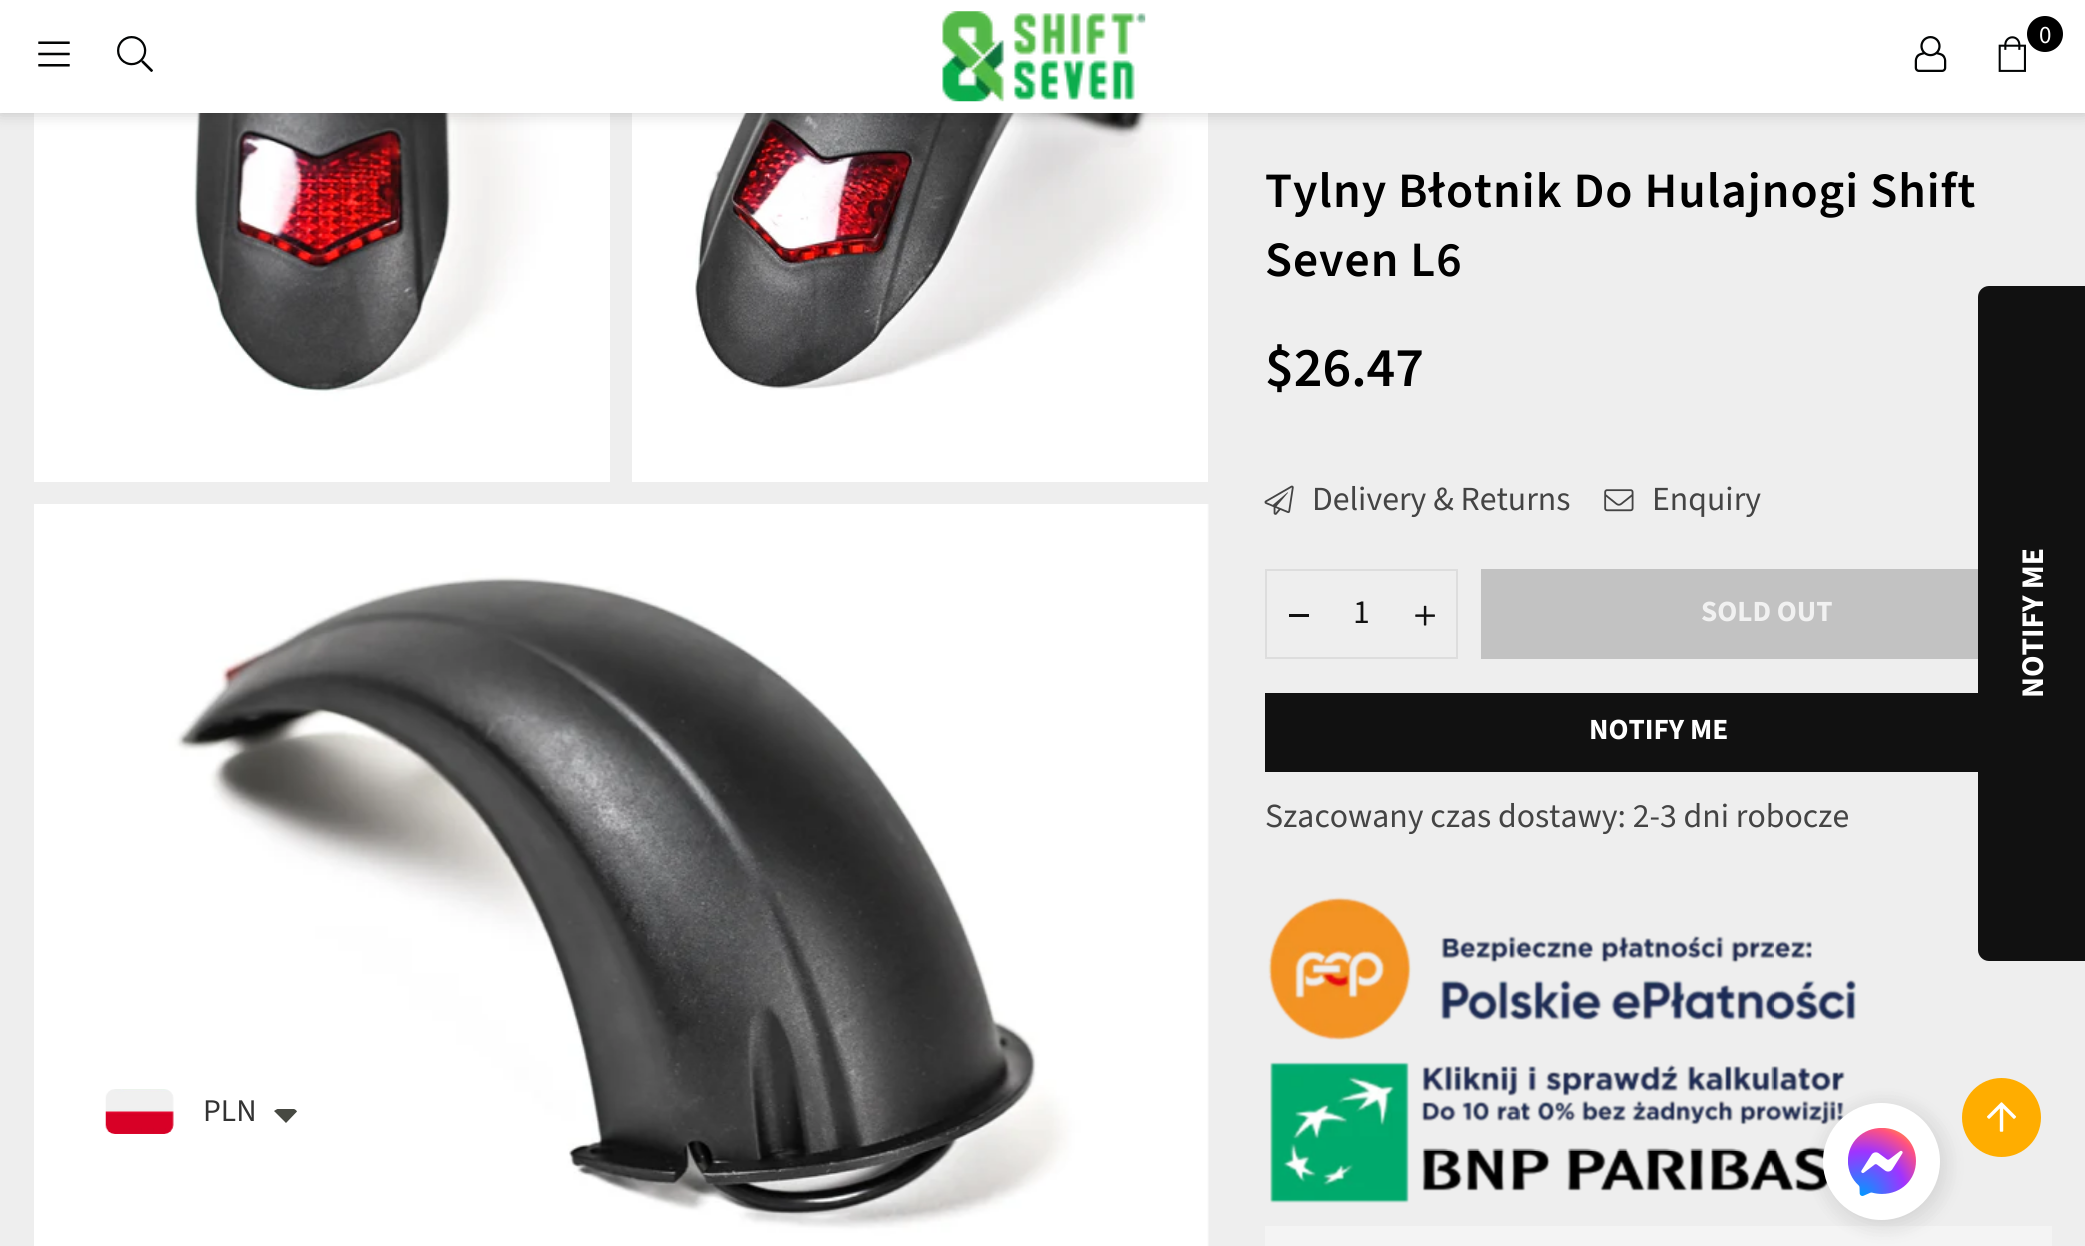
import math
import cairocffi as cairo

surface = cairo.ImageSurface(cairo.FORMAT_RGB24, 2085, 1246)
ctx = cairo.Context(surface)
options = cairo.FontOptions()
options.set_hint_metrics(cairo.HINT_METRICS_OFF)
options.set_hint_style(cairo.HINT_STYLE_NONE)
ctx.set_font_options(options)
ctx.set_miter_limit(4)


def rgb(r, g, b):
    ctx.set_source_rgb(r / 255, g / 255, b / 255)


def face(family, size, italic, bold):
    ctx.select_font_face(family, cairo.FONT_SLANT_ITALIC if italic else cairo.FONT_SLANT_NORMAL, cairo.FONT_WEIGHT_BOLD if bold else cairo.FONT_WEIGHT_NORMAL)
    ctx.set_font_size(size)


def label(x, y, s):
    ctx.move_to(x, y)
    ctx.show_text(s)


def tracked(x, y, s, letter, word):
    ctx.move_to(x, y)
    for ch in s:
        ctx.show_text(ch)
        ctx.rel_move_to(letter + word * (ch == ' '), 0)


def rect(x, y, w, h):
    ctx.rectangle(x, y, w, h)
    ctx.fill()


def rrect(x, y, w, h, r):
    ctx.new_sub_path()
    for i, (u, v) in enumerate([(x + w - r, y + h - r), (x + r, y + h - r), (x + r, y + r), (x + w - r, y + r)]):
        ctx.arc(u, v, r, i * math.pi / 2, (i + 1) * math.pi / 2)
    ctx.close_path()


def soft_shadow(x, y, w, h, r, blur, alpha):
    ctx.push_group_with_content(cairo.CONTENT_ALPHA)
    ctx.set_operator(cairo.OPERATOR_SOURCE)
    for i in range(15, -16, -2):
        e = blur * i / 6
        if min(w, h) + 2 * e > 0:
            ctx.set_source_rgba(0, 0, 0, alpha * math.erfc((i - 1) / 8.5) / 2)
            rrect(x - e, y - e, w + 2 * e, h + 2 * e, max(0, min(r + e + blur * .6, min(w, h) / 2 + e)))
            ctx.fill()
    ctx.mask(ctx.pop_group())


def image(path, x, y, w, h):
    ctx.save()
    ctx.set_source_surface(cairo.ImageSurface.create_from_png(path), x, y)
    ctx.rectangle(x, y, w, h)
    ctx.fill()
    ctx.restore()


rgb(238, 238, 238)
ctx.paint()
image('image5.png', 34, 113, 576, 369)
image('image6.png', 632, 113, 576, 369)
rgb(0, 0, 0)
soft_shadow(0, 0, 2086, 113, 0, 8, 0.2)
rgb(255, 255, 255)
rect(0, 0, 2085, 113)
image('image0.png', 38, 41, 32, 26)
image('image1.png', 117, 36, 36, 36)
image('image2.png', 942, 11, 204, 91)
image('image3.png', 1914, 36, 33, 36)
image('image4.png', 1998, 36, 28, 36)
rgb(0, 0, 0)
ctx.arc(2045, 34, 18, 0, 2 * math.pi)
ctx.fill()
face('Source Sans Pro', 25, 0, 0)
rgb(255, 255, 255)
label(2039, 43, '0')
image('image7.png', 34, 504, 1175, 742)
face('Source Sans Pro SemiBold', 49.5, 0, 0)
rgb(0, 0, 0)
tracked(1265, 207, 'Tylny Błotnik Do Hulajnogi Shift', 1, 0)
tracked(1265, 276, 'Seven L6', 1, 0)
face('Source Sans Pro SemiBold', 56, 0, 0)
label(1265, 386, '$26.47')
image('image8.png', 1264, 485, 30, 30)
face('Source Sans Pro', 33.75, 0, 0)
rgb(68, 68, 68)
label(1312, 510, 'Delivery & Returns')
image('image9.png', 1604, 489, 30, 23)
label(1652, 510, 'Enquiry')
ctx.rectangle(1266, 570, 191, 88)
rgb(221, 221, 221)
ctx.stroke()
rgb(17, 17, 17)
rect(1289, 614, 20, 3)
label(1353, 623, '1')
image('image10.png', 1415, 605, 20, 21)
rgb(194, 194, 194)
rect(1481, 569, 497, 90)
face('Source Sans Pro', 29.25, 0, 1)
rgb(241, 241, 241)
label(1701, 621, 'SOLD OUT')
rgb(17, 17, 17)
rect(1265, 693, 713, 79)
rgb(255, 255, 255)
label(1589, 739, 'NOTIFY ME')
face('Source Sans Pro', 33.75, 0, 0)
rgb(68, 68, 68)
label(1265, 827, 'Szacowany czas dostawy: 2-3 dni robocze')
image('image11.png', 1268, 897, 588, 143)
image('image12.png', 1270, 1062, 575, 141)
rgb(244, 244, 244)
rect(1265, 1226, 787, 20)
rgb(17, 17, 17)
ctx.new_path()
ctx.move_to(1978, 950)
ctx.line_to(1978, 297)
ctx.curve_to(1978, 291, 1983, 286, 1989, 286)
ctx.line_to(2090, 286)
ctx.line_to(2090, 961)
ctx.line_to(1989, 961)
ctx.curve_to(1983, 961, 1978, 956, 1978, 950)
ctx.close_path()
ctx.fill()
face('Source Sans Pro', 31.5, 0, 1)
rgb(255, 255, 255)
ctx.save()
ctx.translate(2043, 698)
ctx.rotate(-90 * math.pi / 180)
label(0, 0, 'NOTIFY ME')
ctx.restore()
image('image13.png', 105, 1089, 69, 45)
face('Source Sans Pro', 31.5, 0, 0)
rgb(51, 51, 51)
label(203, 1121, 'PLN')
rgb(71, 73, 66)
ctx.new_path()
ctx.move_to(274, 1111)
ctx.curve_to(275, 1110.5, 276, 1109.5, 277.5, 1109)
ctx.line_to(294, 1109)
ctx.curve_to(295.5, 1109.5, 296.5, 1110.5, 297, 1111.5)
ctx.line_to(286, 1123)
ctx.close_path()
ctx.fill()
rgb(255, 173, 0)
ctx.arc(2001.5, 1117.5, 39.5, 0, 2 * math.pi)
ctx.fill()
rgb(0, 0, 0)
soft_shadow(1823, 1103, 126, 126, 63, 10, 0.07)
soft_shadow(1823, 1107, 117, 117, 58.5, 11, 0.05)
image('image14.png', 1823, 1103, 117, 117)
image('image15.png', 1987, 1102, 30, 30)
surface.write_to_png('render.png')
